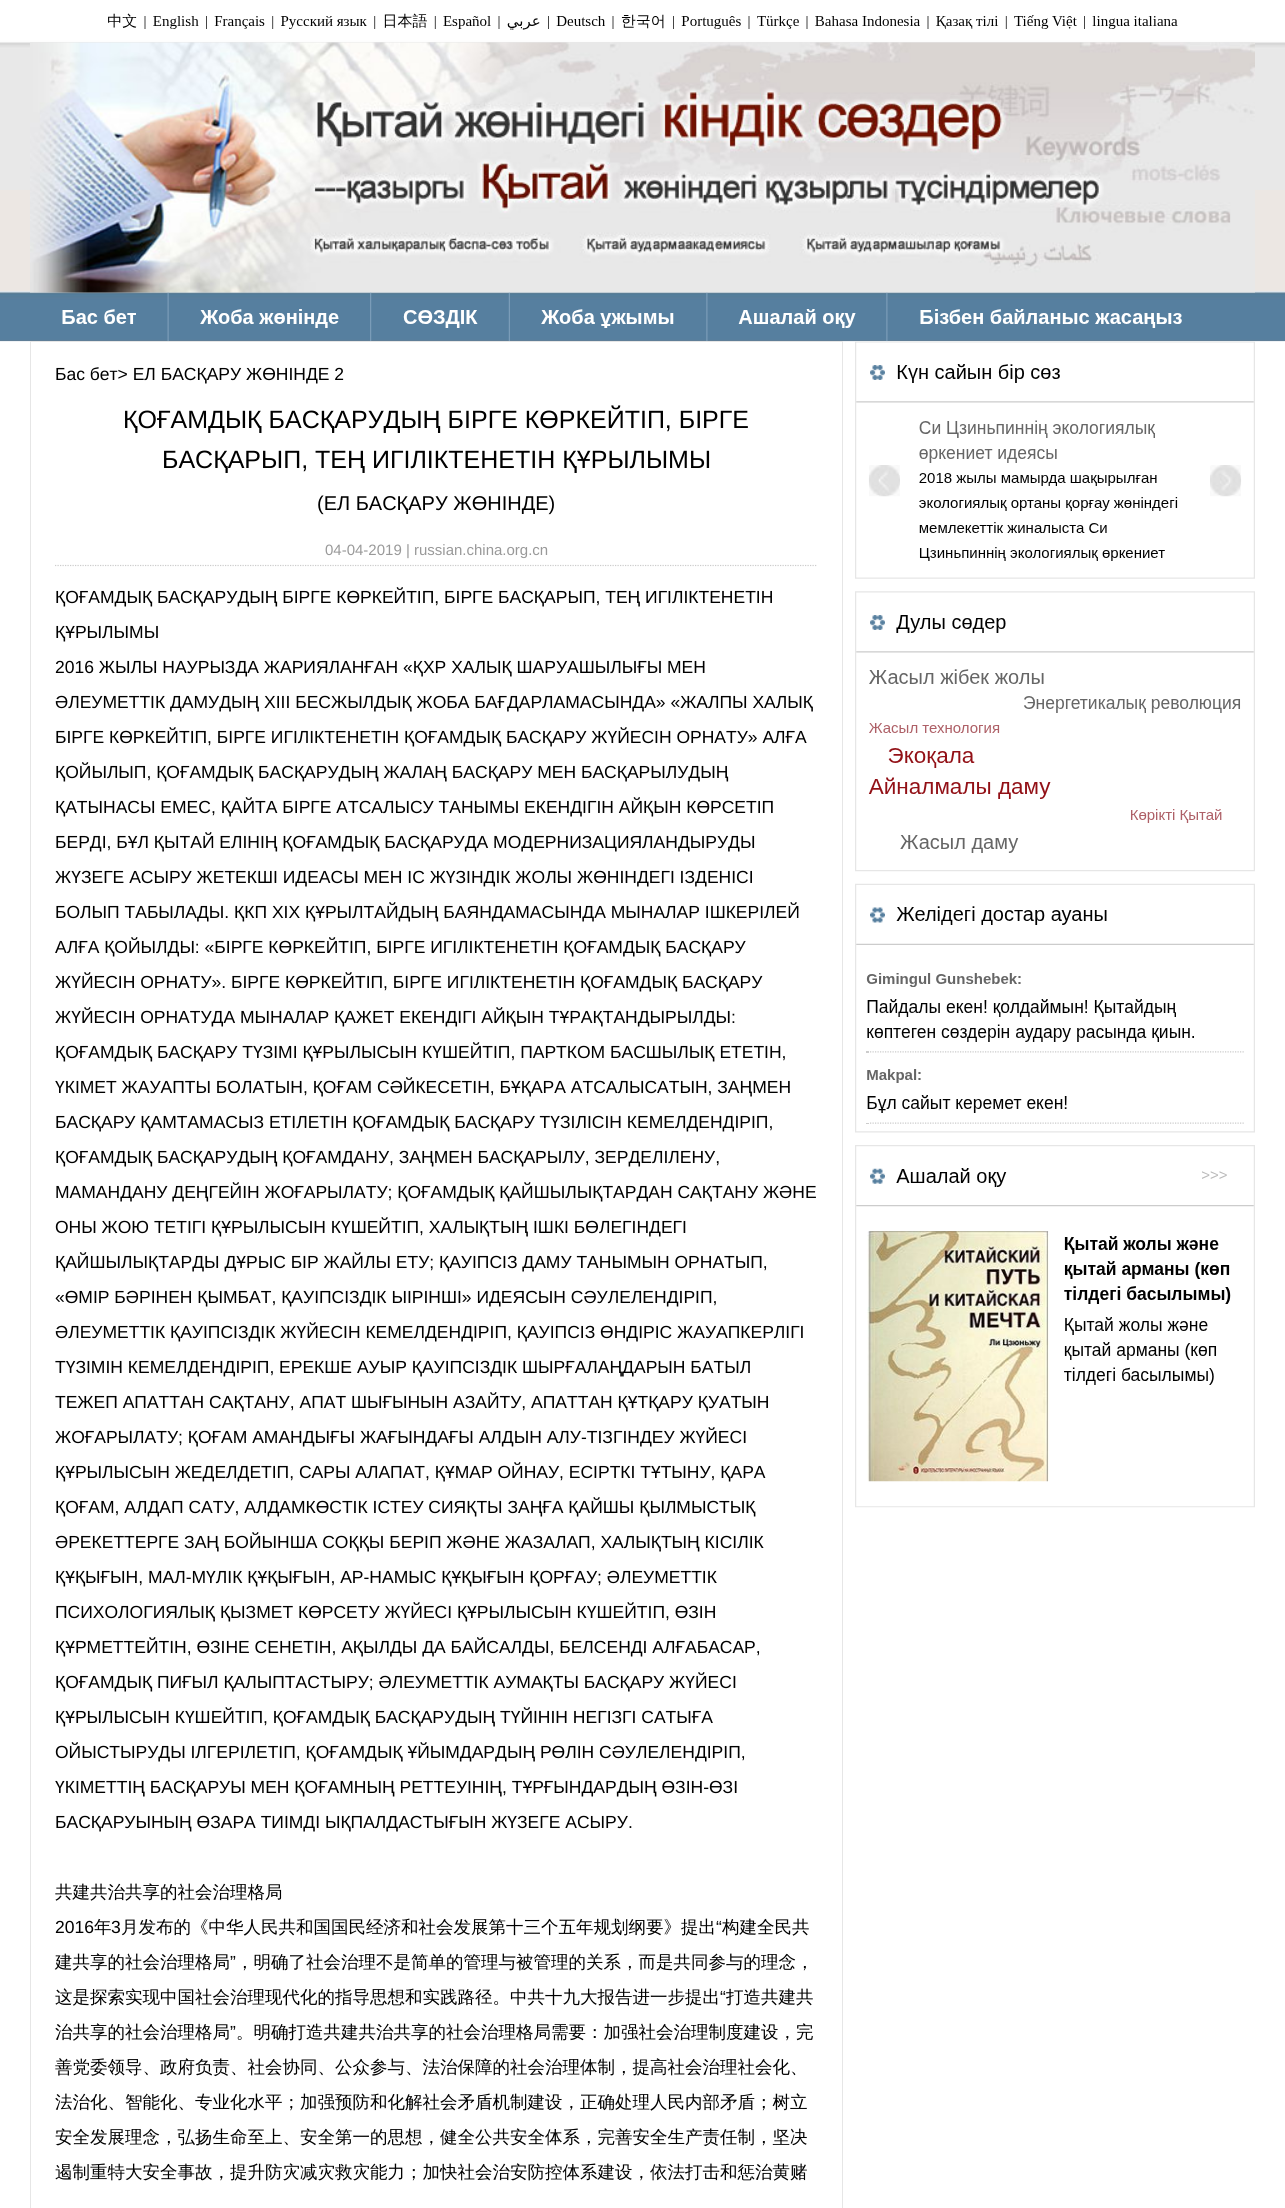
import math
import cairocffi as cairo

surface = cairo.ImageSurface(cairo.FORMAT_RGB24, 1285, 2208)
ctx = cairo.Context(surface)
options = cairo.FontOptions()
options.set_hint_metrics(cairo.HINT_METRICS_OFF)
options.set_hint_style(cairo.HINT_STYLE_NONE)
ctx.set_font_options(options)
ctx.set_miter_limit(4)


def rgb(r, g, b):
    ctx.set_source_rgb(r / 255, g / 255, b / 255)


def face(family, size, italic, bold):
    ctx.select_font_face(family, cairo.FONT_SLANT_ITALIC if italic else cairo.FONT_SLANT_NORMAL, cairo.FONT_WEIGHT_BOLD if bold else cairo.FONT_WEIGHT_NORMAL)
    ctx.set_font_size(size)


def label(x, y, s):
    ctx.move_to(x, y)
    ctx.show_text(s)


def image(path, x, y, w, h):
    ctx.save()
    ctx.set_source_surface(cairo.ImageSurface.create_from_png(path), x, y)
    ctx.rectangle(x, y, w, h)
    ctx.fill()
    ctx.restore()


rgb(255, 255, 255)
ctx.paint()
image('image0.png', 0, 13, 1285, 329)
ctx.rectangle(30.5, 341.5, 812, 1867)
rgb(230, 230, 230)
ctx.set_line_width(1)
ctx.stroke()
face('Liberation Sans', 17.5, 0, 0)
rgb(0, 0, 0)
label(55, 380, 'Бас бет> ЕЛ БАСҚАРУ ЖӨНІНДЕ 2')
face('Liberation Sans', 25, 0, 0)
label(123, 428, 'ҚОҒАМДЫҚ БАСҚАРУДЫҢ БІРГЕ КӨРКЕЙТІП, БІРГЕ')
label(162, 468, 'БАСҚАРЫП, ТЕҢ ИГІЛІКТЕНЕТІН ҚҰРЫЛЫМЫ')
face('Liberation Sans', 20, 0, 0)
label(317, 510, '(ЕЛ БАСҚАРУ ЖӨНІНДЕ)')
ctx.new_path()
ctx.move_to(55, 565.5)
ctx.line_to(817.5, 565.5)
rgb(204, 204, 204)
ctx.set_line_width(1.2)
ctx.set_dash([1.25, 1.25])
ctx.stroke()
face('Liberation Sans', 15, 0, 0)
rgb(153, 153, 153)
label(325, 555, '04-04-2019 | russian.china.org.cn')
face('Liberation Sans', 17.5, 0, 0)
rgb(0, 0, 0)
label(55, 603, 'ҚОҒАМДЫҚ БАСҚАРУДЫҢ БІРГЕ КӨРКЕЙТІП, БІРГЕ БАСҚАРЫП, ТЕҢ ИГІЛІКТЕНЕТІН')
label(55, 638, 'ҚҰРЫЛЫМЫ')
label(55, 673, '2016 ЖЫЛЫ НАУРЫЗДА ЖАРИЯЛАНҒАН «ҚХР ХАЛЫҚ ШАРУАШЫЛЫҒЫ МЕН')
label(55, 708, 'ӘЛЕУМЕТТІК ДАМУДЫҢ ХIII БЕСЖЫЛДЫҚ ЖОБА БАҒДАРЛАМАСЫНДА» «ЖАЛПЫ ХАЛЫҚ')
label(55, 743, 'БІРГЕ КӨРКЕЙТІП, БІРГЕ ИГІЛІКТЕНЕТІН ҚОҒАМДЫҚ БАСҚАРУ ЖҮЙЕСІН ОРНАТУ» АЛҒА')
label(55, 778, 'ҚОЙЫЛЫП, ҚОҒАМДЫҚ БАСҚАРУДЫҢ ЖАЛАҢ БАСҚАРУ МЕН БАСҚАРЫЛУДЫҢ')
label(55, 813, 'ҚАТЫНАСЫ ЕМЕС, ҚАЙТА БІРГЕ АТСАЛЫСУ ТАНЫМЫ ЕКЕНДІГІН АЙҚЫН КӨРСЕТІП')
label(55, 848, 'БЕРДІ, БҰЛ ҚЫТАЙ ЕЛІНІҢ ҚОҒАМДЫҚ БАСҚАРУДА МОДЕРНИЗАЦИЯЛАНДЫРУДЫ')
label(55, 883, 'ЖҮЗЕГЕ АСЫРУ ЖЕТЕКШІ ИДЕАСЫ МЕН ІС ЖҮЗІНДІК ЖОЛЫ ЖӨНІНДЕГІ ІЗДЕНІСІ')
label(55, 918, 'БОЛЫП ТАБЫЛАДЫ. ҚКП XIX ҚҰРЫЛТАЙДЫҢ БАЯНДАМАСЫНДА МЫНАЛАР ІШКЕРІЛЕЙ')
label(55, 953, 'АЛҒА ҚОЙЫЛДЫ: «БІРГЕ КӨРКЕЙТІП, БІРГЕ ИГІЛІКТЕНЕТІН ҚОҒАМДЫҚ БАСҚАРУ')
label(55, 988, 'ЖҮЙЕСІН ОРНАТУ». БІРГЕ КӨРКЕЙТІП, БІРГЕ ИГІЛІКТЕНЕТІН ҚОҒАМДЫҚ БАСҚАРУ')
label(55, 1023, 'ЖҮЙЕСІН ОРНАТУДА МЫНАЛАР ҚАЖЕТ ЕКЕНДІГІ АЙҚЫН ТҰРАҚТАНДЫРЫЛДЫ:')
label(55, 1058, 'ҚОҒАМДЫҚ БАСҚАРУ ТҮЗІМІ ҚҰРЫЛЫСЫН КҮШЕЙТІП, ПАРТКОМ БАСШЫЛЫҚ ЕТЕТІН,')
label(55, 1093, 'ҮКІМЕТ ЖАУАПТЫ БОЛАТЫН, ҚОҒАМ СӘЙКЕСЕТІН, БҰҚАРА АТСАЛЫСАТЫН, ЗАҢМЕН')
label(55, 1128, 'БАСҚАРУ ҚАМТАМАСЫЗ ЕТІЛЕТІН ҚОҒАМДЫҚ БАСҚАРУ ТҮЗІЛІСІН КЕМЕЛДЕНДІРІП,')
label(55, 1163, 'ҚОҒАМДЫҚ БАСҚАРУДЫҢ ҚОҒАМДАНУ, ЗАҢМЕН БАСҚАРЫЛУ, ЗЕРДЕЛІЛЕНУ,')
label(55, 1198, 'МАМАНДАНУ ДЕҢГЕЙІН ЖОҒАРЫЛАТУ; ҚОҒАМДЫҚ ҚАЙШЫЛЫҚТАРДАН САҚТАНУ ЖӘНЕ')
label(55, 1233, 'ОНЫ ЖОЮ ТЕТІГІ ҚҰРЫЛЫСЫН КҮШЕЙТІП, ХАЛЫҚТЫҢ ІШКІ БӨЛЕГІНДЕГІ')
label(55, 1268, 'ҚАЙШЫЛЫҚТАРДЫ ДҰРЫС БІР ЖАЙЛЫ ЕТУ; ҚАУІПСІЗ ДАМУ ТАНЫМЫН ОРНАТЫП,')
label(55, 1303, '«ӨМІР БӘРІНЕН ҚЫМБАТ, ҚАУІПСІЗДІК ЫІРІНШІ» ИДЕЯСЫН СӘУЛЕЛЕНДІРІП,')
label(55, 1338, 'ӘЛЕУМЕТТІК ҚАУІПСІЗДІК ЖҮЙЕСІН КЕМЕЛДЕНДІРІП, ҚАУІПСІЗ ӨНДІРІС ЖАУАПКЕРЛІГІ')
label(55, 1373, 'ТҮЗІМІН КЕМЕЛДЕНДІРІП, ЕРЕКШЕ АУЫР ҚАУІПСІЗДІК ШЫРҒАЛАҢДАРЫН БАТЫЛ')
label(55, 1408, 'ТЕЖЕП АПАТТАН САҚТАНУ, АПАТ ШЫҒЫНЫН АЗАЙТУ, АПАТТАН ҚҰТҚАРУ ҚУАТЫН')
label(55, 1443, 'ЖОҒАРЫЛАТУ; ҚОҒАМ АМАНДЫҒЫ ЖАҒЫНДАҒЫ АЛДЫН АЛУ-ТІЗГІНДЕУ ЖҮЙЕСІ')
label(55, 1478, 'ҚҰРЫЛЫСЫН ЖЕДЕЛДЕТІП, САРЫ АЛАПАТ, ҚҰМАР ОЙНАУ, ЕСІРТКІ ТҰТЫНУ, ҚАРА')
label(55, 1513, 'ҚОҒАМ, АЛДАП САТУ, АЛДАМКӨСТІК ІСТЕУ СИЯҚТЫ ЗАҢҒА ҚАЙШЫ ҚЫЛМЫСТЫҚ')
label(55, 1548, 'ӘРЕКЕТТЕРГЕ ЗАҢ БОЙЫНША СОҚҚЫ БЕРІП ЖӘНЕ ЖАЗАЛАП, ХАЛЫҚТЫҢ КІСІЛІК')
label(55, 1583, 'ҚҰҚЫҒЫН, МАЛ-МҮЛІК ҚҰҚЫҒЫН, АР-НАМЫС ҚҰҚЫҒЫН ҚОРҒАУ; ӘЛЕУМЕТТІК')
label(55, 1618, 'ПСИХОЛОГИЯЛЫҚ ҚЫЗМЕТ КӨРСЕТУ ЖҮЙЕСІ ҚҰРЫЛЫСЫН КҮШЕЙТІП, ӨЗІН')
label(55, 1653, 'ҚҰРМЕТТЕЙТІН, ӨЗІНЕ СЕНЕТІН, АҚЫЛДЫ ДА БАЙСАЛДЫ, БЕЛСЕНДІ АЛҒАБАСАР,')
label(55, 1688, 'ҚОҒАМДЫҚ ПИҒЫЛ ҚАЛЫПТАСТЫРУ; ӘЛЕУМЕТТІК АУМАҚТЫ БАСҚАРУ ЖҮЙЕСІ')
label(55, 1723, 'ҚҰРЫЛЫСЫН КҮШЕЙТІП, ҚОҒАМДЫҚ БАСҚАРУДЫҢ ТҮЙІНІН НЕГІЗГІ САТЫҒА')
label(55, 1758, 'ОЙЫСТЫРУДЫ ІЛГЕРІЛЕТІП, ҚОҒАМДЫҚ ҰЙЫМДАРДЫҢ РӨЛІН СӘУЛЕЛЕНДІРІП,')
label(55, 1793, 'ҮКІМЕТТІҢ БАСҚАРУЫ МЕН ҚОҒАМНЫҢ РЕТТЕУІНІҢ, ТҰРҒЫНДАРДЫҢ ӨЗІН-ӨЗІ')
label(55, 1828, 'БАСҚАРУЫНЫҢ ӨЗАРА ТИІМДІ ЫҚПАЛДАСТЫҒЫН ЖҮЗЕГЕ АСЫРУ.')
face('WenQuanYi Zen Hei Medium', 17.5, 0, 0)
label(55, 1898, '共建共治共享的社会治理格局')
face('Liberation Sans', 17.5, 0, 0)
label(55, 1933, '2016')
face('WenQuanYi Zen Hei Medium', 17.5, 0, 0)
label(94, 1933, '年')
face('Liberation Sans', 17.5, 0, 0)
label(111, 1933, '3')
face('WenQuanYi Zen Hei Medium', 17.5, 0, 0)
label(121, 1933, '月发布的《中华人民共和国国民经济和社会发展第十三个五年规划纲要》提出')
face('Liberation Sans', 17.5, 0, 0)
label(716, 1933, '“')
face('WenQuanYi Zen Hei Medium', 17.5, 0, 0)
label(722, 1933, '构建全民共')
label(55, 1968, '建共享的社会治理格局')
face('Liberation Sans', 17.5, 0, 0)
label(230, 1968, '”')
face('WenQuanYi Zen Hei Medium', 17.5, 0, 0)
label(236, 1968, '，明确了社会治理不是简单的管理与被管理的关系，而是共同参与的理念，')
label(55, 2003, '这是探索实现中国社会治理现代化的指导思想和实践路径。中共十九大报告进一步提出')
face('Liberation Sans', 17.5, 0, 0)
label(720, 2003, '“')
face('WenQuanYi Zen Hei Medium', 17.5, 0, 0)
label(726, 2003, '打造共建共')
label(55, 2038, '治共享的社会治理格局')
face('Liberation Sans', 17.5, 0, 0)
label(230, 2038, '”')
face('WenQuanYi Zen Hei Medium', 17.5, 0, 0)
label(236, 2038, '。明确打造共建共治共享的社会治理格局需要：加强社会治理制度建设，完')
label(55, 2073, '善党委领导、政府负责、社会协同、公众参与、法治保障的社会治理体制，提高社会治理社会化、')
label(55, 2108, '法治化、智能化、专业化水平；加强预防和化解社会矛盾机制建设，正确处理人民内部矛盾；树立')
label(55, 2143, '安全发展理念，弘扬生命至上、安全第一的思想，健全公共安全体系，完善安全生产责任制，坚决')
label(55, 2178, '遏制重特大安全事故，提升防灾减灾救灾能力；加快社会治安防控体系建设，依法打击和惩治黄赌')
image('image1.png', 855, 341, 400, 1167)
surface.write_to_png('render.png')
